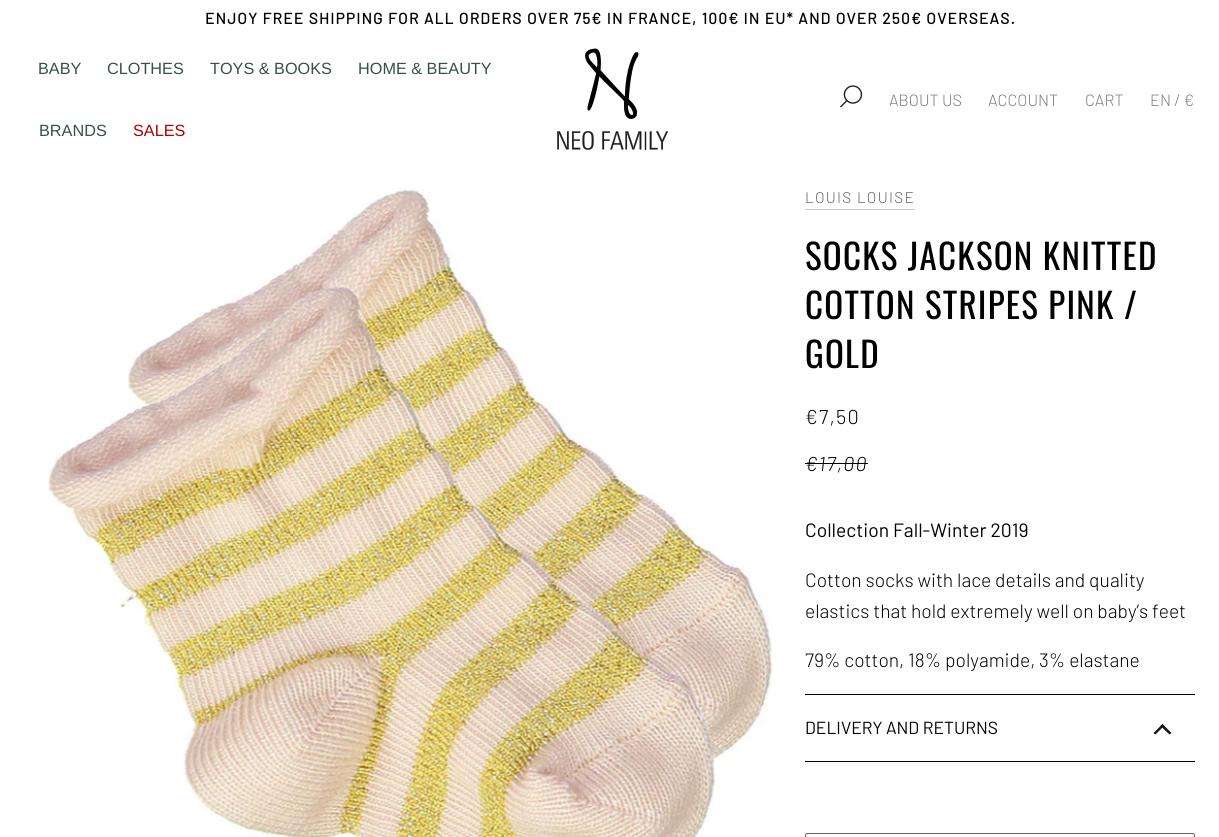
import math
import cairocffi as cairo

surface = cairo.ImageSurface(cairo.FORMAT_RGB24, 1219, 837)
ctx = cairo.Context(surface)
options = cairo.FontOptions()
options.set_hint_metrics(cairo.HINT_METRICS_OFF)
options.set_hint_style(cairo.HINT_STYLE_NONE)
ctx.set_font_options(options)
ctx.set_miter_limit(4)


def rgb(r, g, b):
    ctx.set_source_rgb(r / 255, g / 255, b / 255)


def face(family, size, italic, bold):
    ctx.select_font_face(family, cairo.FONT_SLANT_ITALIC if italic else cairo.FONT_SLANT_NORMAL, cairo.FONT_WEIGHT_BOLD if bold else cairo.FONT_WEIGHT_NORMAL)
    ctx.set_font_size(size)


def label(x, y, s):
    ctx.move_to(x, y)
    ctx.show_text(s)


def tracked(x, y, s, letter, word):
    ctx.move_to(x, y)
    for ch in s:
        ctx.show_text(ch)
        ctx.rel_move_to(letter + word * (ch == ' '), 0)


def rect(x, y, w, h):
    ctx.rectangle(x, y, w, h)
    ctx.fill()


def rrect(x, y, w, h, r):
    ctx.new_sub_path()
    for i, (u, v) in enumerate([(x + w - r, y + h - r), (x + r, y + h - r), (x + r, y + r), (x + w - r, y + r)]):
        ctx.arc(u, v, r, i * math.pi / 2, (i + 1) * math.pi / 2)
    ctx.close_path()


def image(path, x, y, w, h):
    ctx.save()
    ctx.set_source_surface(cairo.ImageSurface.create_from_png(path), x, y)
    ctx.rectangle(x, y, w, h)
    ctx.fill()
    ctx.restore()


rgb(255, 255, 255)
ctx.paint()
face('Barlow', 15.4, 0, 1)
rgb(0, 0, 0)
tracked(205, 24, 'ENJOY FREE SHIPPING FOR ALL ORDERS OVER 75€ IN FRANCE, 100€ IN EU* AND OVER 250€ OVERSEAS.', 1.25, 0)
face('Liberation Sans', 16.25, 0, 0)
rgb(56, 80, 72)
label(38, 74, 'BABY')
label(107, 74, 'CLOTHES')
label(210, 74, 'TOYS & BOOKS')
label(358, 74, 'HOME & BEAUTY')
label(39, 136, 'BRANDS')
rgb(175, 0, 0)
label(133, 136, 'SALES')
image('image0.png', 557, 48, 111, 102)
image('image1.png', 840, 85, 23, 23)
face('Barlow Light', 16.25, 0, 0)
rgb(122, 122, 122)
label(889, 106, 'ABOUT US')
label(988, 106, 'ACCOUNT')
label(1085, 106, 'CART')
label(1150, 106, 'EN / €')
image('image2.png', 47, 188, 726, 649)
face('Barlow Light', 15.4, 0, 0)
rgb(102, 95, 95)
tracked(805, 203, 'LOUIS LOUISE', 1.25, 0)
rgb(204, 204, 204)
rect(805, 209, 110, 1)
face('Oswald', 35, 0, 0)
rgb(0, 0, 0)
tracked(805, 270, 'SOCKS JACKSON KNITTED', 1.25, 0)
tracked(805, 319, 'COTTON STRIPES PINK /', 1.25, 0)
tracked(805, 368, 'GOLD', 1.25, 0)
face('Barlow Light', 20, 0, 0)
tracked(805, 424, '€7,50', 1.25, 0)
face('Barlow Light', 20, 1, 0)
tracked(805, 471, '€17,00', 1.25, 0)
rect(805, 463, 63, 1)
face('Barlow', 19.25, 0, 0)
label(805, 537, 'Collection Fall-Winter 2019')
face('Barlow Light', 19.25, 0, 0)
label(805, 587, 'Cotton socks with lace details and quality')
label(805, 618, 'elastics that hold extremely well on baby’s feet')
label(805, 667, '79% cotton, 18% polyamide, 3% elastane')
rect(805, 761, 390, 1)
rect(805, 694, 390, 1)
face('Barlow', 17.5, 0, 0)
label(805, 734, 'DELIVERY AND RETURNS')
rgb(24, 24, 24)
ctx.new_path()
ctx.move_to(1155.5, 734.5)
ctx.line_to(1153.5, 733)
ctx.line_to(1162.5, 724)
ctx.line_to(1164, 726)
ctx.close_path()
ctx.fill()
ctx.new_path()
ctx.move_to(1169.5, 734.5)
ctx.line_to(1160.5, 726)
ctx.line_to(1162.5, 724)
ctx.line_to(1171.5, 733)
ctx.close_path()
ctx.fill()
rrect(805.5, 833.5, 389, 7, 2)
rgb(102, 95, 95)
ctx.set_line_width(1)
ctx.stroke()
surface.write_to_png('render.png')
